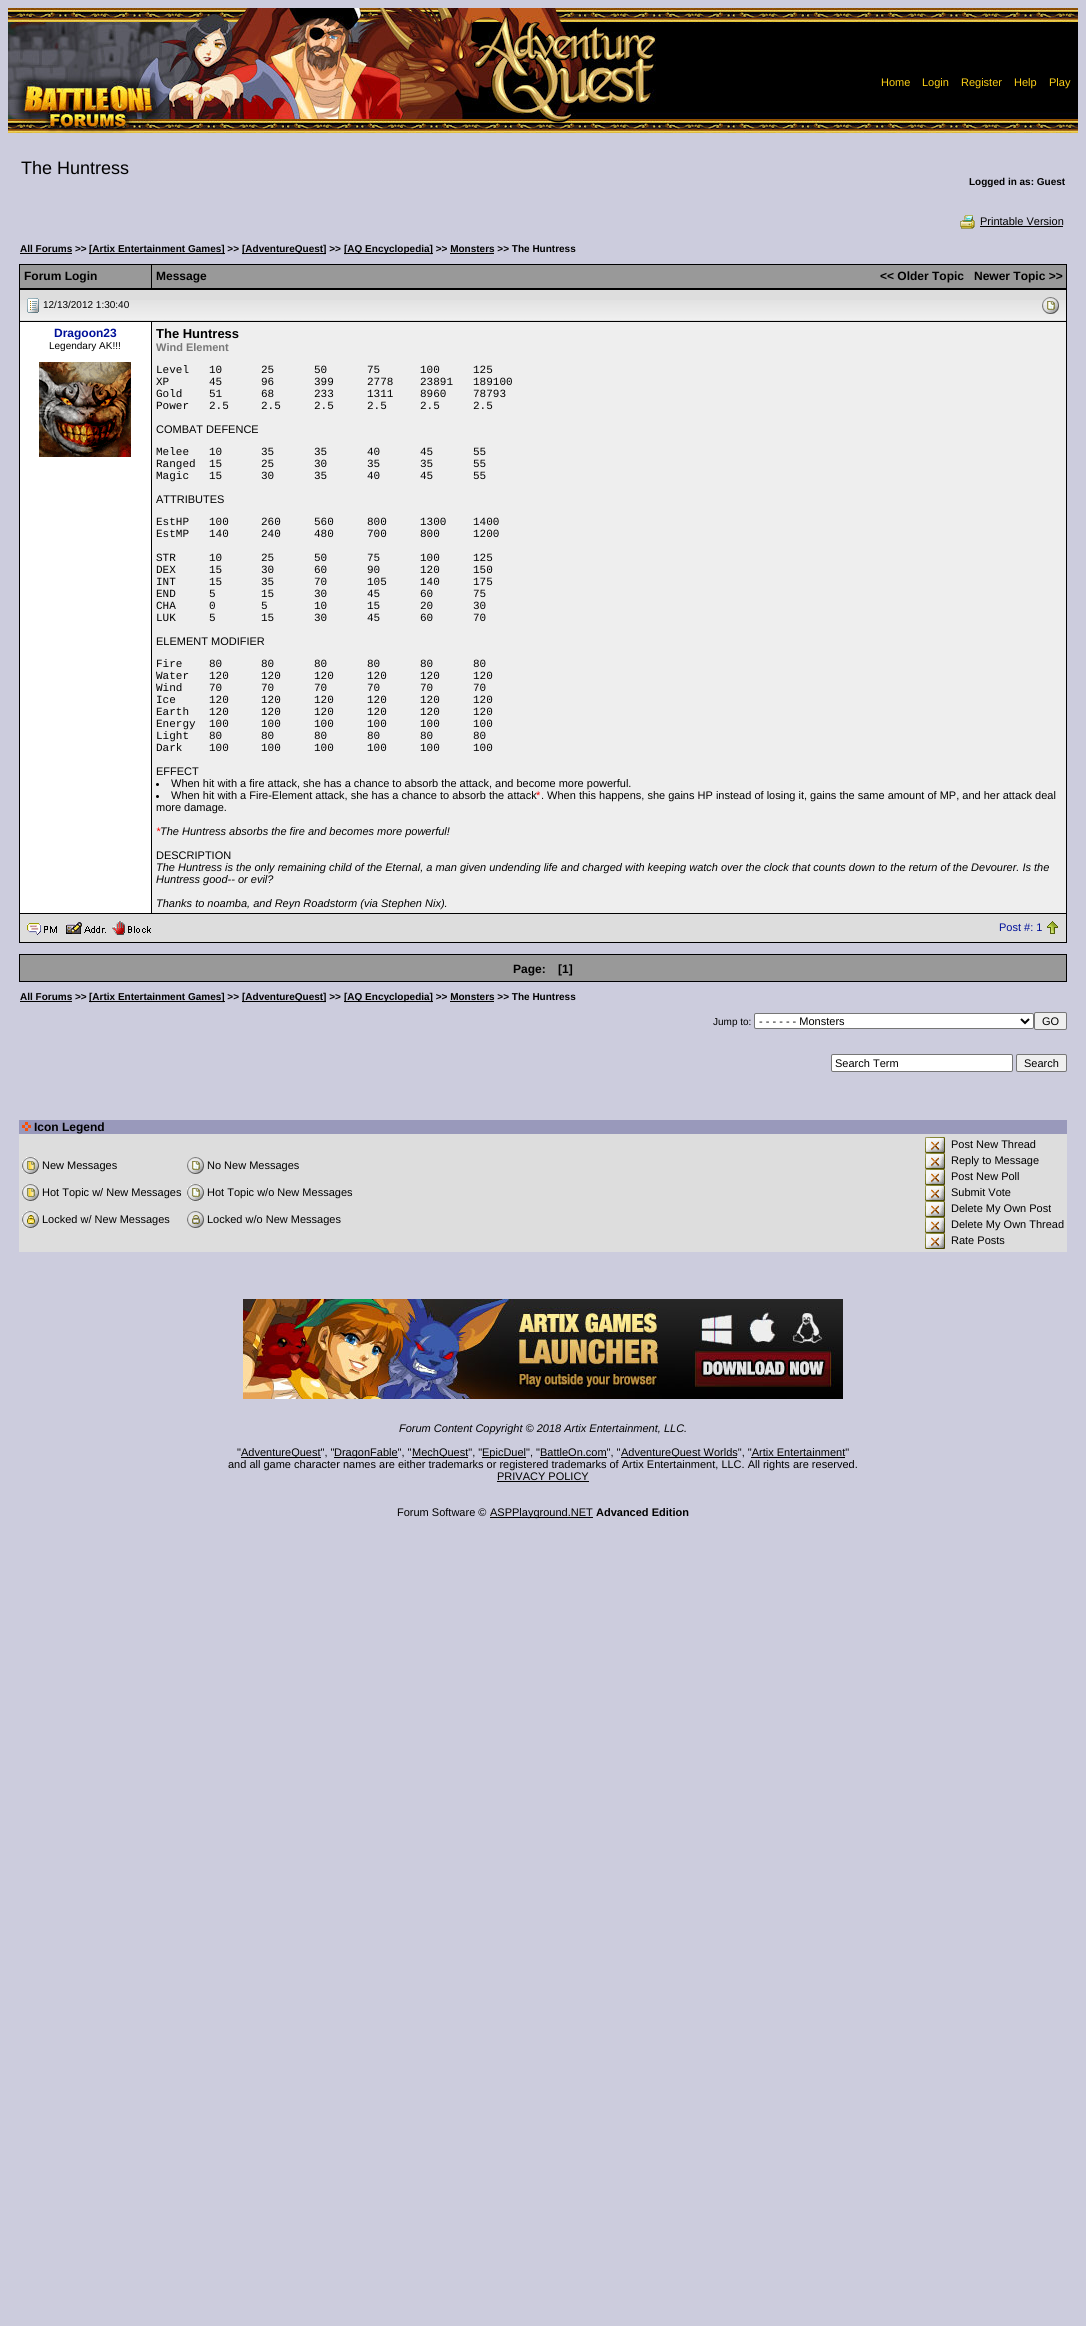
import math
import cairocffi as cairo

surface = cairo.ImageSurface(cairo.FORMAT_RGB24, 1086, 2326)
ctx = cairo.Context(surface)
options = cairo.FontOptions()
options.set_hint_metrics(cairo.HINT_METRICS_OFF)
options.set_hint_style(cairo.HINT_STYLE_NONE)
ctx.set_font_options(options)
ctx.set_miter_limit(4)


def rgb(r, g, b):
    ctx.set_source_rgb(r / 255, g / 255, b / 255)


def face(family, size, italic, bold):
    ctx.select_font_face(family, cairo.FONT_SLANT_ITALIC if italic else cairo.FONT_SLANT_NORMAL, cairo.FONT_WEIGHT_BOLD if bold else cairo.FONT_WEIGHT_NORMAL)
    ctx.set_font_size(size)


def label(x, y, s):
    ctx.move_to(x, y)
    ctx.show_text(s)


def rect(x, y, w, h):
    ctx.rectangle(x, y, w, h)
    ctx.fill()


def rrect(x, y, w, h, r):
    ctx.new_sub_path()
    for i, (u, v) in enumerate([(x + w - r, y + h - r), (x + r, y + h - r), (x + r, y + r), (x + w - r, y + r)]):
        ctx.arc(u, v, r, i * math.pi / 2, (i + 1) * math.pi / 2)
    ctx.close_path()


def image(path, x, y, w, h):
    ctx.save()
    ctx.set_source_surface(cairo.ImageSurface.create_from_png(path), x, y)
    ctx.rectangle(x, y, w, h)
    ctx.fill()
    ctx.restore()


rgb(204, 204, 221)
ctx.paint()
image('image0.png', 8, 8, 1070, 125)
face('Liberation Sans', 11, 0, 0)
rgb(253, 208, 23)
label(881, 86, 'Home')
label(922, 86, 'Login')
label(961, 86, 'Register')
label(1014, 86, 'Help')
label(1049, 86, 'Play')
face('Liberation Sans', 18, 0, 0)
rgb(0, 0, 0)
label(21, 174, 'The Huntress')
face('Liberation Sans', 10, 0, 1)
label(969, 185, 'Logged in as: Guest')
image('image1.png', 960, 215, 15, 14)
face('Liberation Sans', 11, 0, 0)
label(980, 225, 'Printable Version')
rect(980, 226, 83, 1)
face('Liberation Sans', 10, 0, 1)
label(20, 252, 'All Forums >>')
rect(20, 253, 52, 1)
rect(89, 253, 136, 1)
label(89, 252, '[Artix Entertainment Games] >>')
rect(242, 253, 84, 1)
label(242, 252, '[AdventureQuest] >>')
rect(344, 253, 89, 1)
label(344, 252, '[AQ Encyclopedia] >> Monsters >> The Huntress')
rect(450, 253, 44, 1)
rect(19, 264, 1048, 679)
rgb(153, 153, 153)
rect(20, 265, 131, 23)
face('Liberation Sans', 12, 0, 1)
rgb(0, 0, 0)
label(24, 280, 'Forum Login')
rgb(153, 153, 153)
rect(152, 265, 914, 23)
rgb(0, 0, 0)
label(156, 280, 'Message')
label(880, 280, '<< Older Topic')
label(974, 280, 'Newer Topic >>')
rgb(221, 221, 221)
rect(20, 290, 1046, 31)
image('image2.png', 20, 300, 1046, 20)
image('image3.png', 27, 298, 12, 15)
face('Liberation Sans', 10, 0, 0)
rgb(0, 0, 0)
label(43, 308, '12/13/2012 1:30:40')
image('image4.png', 1042, 297, 17, 17)
rgb(255, 255, 255)
rect(20, 322, 131, 591)
face('Liberation Sans', 12, 0, 1)
rgb(0, 16, 153)
label(54, 337, 'Dragoon23')
face('Liberation Sans', 10, 0, 0)
rgb(0, 0, 0)
label(49, 349, 'Legendary AK!!!')
image('image5.png', 39, 362, 92, 95)
rgb(238, 238, 238)
rect(152, 322, 914, 591)
face('Liberation Sans', 13, 0, 1)
rgb(0, 0, 0)
label(156, 338, 'The Huntress')
face('Liberation Sans', 11, 0, 1)
rgb(119, 119, 119)
label(156, 351, 'Wind Element')
face('Liberation Mono', 11, 0, 0)
rgb(0, 0, 0)
label(156, 373, 'Level')
label(209, 373, '10')
label(261, 373, '25')
label(314, 373, '50')
label(367, 373, '75')
label(420, 373, '100')
label(473, 373, '125')
label(156, 385, 'XP')
label(209, 385, '45')
label(261, 385, '96')
label(314, 385, '399')
label(367, 385, '2778')
label(420, 385, '23891')
label(473, 385, '189100')
label(156, 397, 'Gold')
label(209, 397, '51')
label(261, 397, '68')
label(314, 397, '233')
label(367, 397, '1311')
label(420, 397, '8960')
label(473, 397, '78793')
label(156, 409, 'Power')
label(209, 409, '2.5')
label(261, 409, '2.5')
label(314, 409, '2.5')
label(367, 409, '2.5')
label(420, 409, '2.5')
label(473, 409, '2.5')
face('Liberation Sans', 11, 0, 0)
label(156, 433, 'COMBAT DEFENCE')
face('Liberation Mono', 11, 0, 0)
label(156, 455, 'Melee')
label(209, 455, '10')
label(261, 455, '35')
label(314, 455, '35')
label(367, 455, '40')
label(420, 455, '45')
label(473, 455, '55')
label(156, 467, 'Ranged')
label(209, 467, '15')
label(261, 467, '25')
label(314, 467, '30')
label(367, 467, '35')
label(420, 467, '35')
label(473, 467, '55')
label(156, 479, 'Magic')
label(209, 479, '15')
label(261, 479, '30')
label(314, 479, '35')
label(367, 479, '40')
label(420, 479, '45')
label(473, 479, '55')
face('Liberation Sans', 11, 0, 0)
label(156, 503, 'ATTRIBUTES')
face('Liberation Mono', 11, 0, 0)
label(156, 525, 'EstHP')
label(209, 525, '100')
label(261, 525, '260')
label(314, 525, '560')
label(367, 525, '800')
label(420, 525, '1300')
label(473, 525, '1400')
label(156, 537, 'EstMP')
label(209, 537, '140')
label(261, 537, '240')
label(314, 537, '480')
label(367, 537, '700')
label(420, 537, '800')
label(473, 537, '1200')
label(156, 561, 'STR')
label(209, 561, '10')
label(261, 561, '25')
label(314, 561, '50')
label(367, 561, '75')
label(420, 561, '100')
label(473, 561, '125')
label(156, 573, 'DEX')
label(209, 573, '15')
label(261, 573, '30')
label(314, 573, '60')
label(367, 573, '90')
label(420, 573, '120')
label(473, 573, '150')
label(156, 585, 'INT')
label(209, 585, '15')
label(261, 585, '35')
label(314, 585, '70')
label(367, 585, '105')
label(420, 585, '140')
label(473, 585, '175')
label(156, 597, 'END')
label(209, 597, '5')
label(261, 597, '15')
label(314, 597, '30')
label(367, 597, '45')
label(420, 597, '60')
label(473, 597, '75')
label(156, 609, 'CHA')
label(209, 609, '0')
label(261, 609, '5')
label(314, 609, '10')
label(367, 609, '15')
label(420, 609, '20')
label(473, 609, '30')
label(156, 621, 'LUK')
label(209, 621, '5')
label(261, 621, '15')
label(314, 621, '30')
label(367, 621, '45')
label(420, 621, '60')
label(473, 621, '70')
face('Liberation Sans', 11, 0, 0)
label(156, 645, 'ELEMENT MODIFIER')
face('Liberation Mono', 11, 0, 0)
label(156, 667, 'Fire')
label(209, 667, '80')
label(261, 667, '80')
label(314, 667, '80')
label(367, 667, '80')
label(420, 667, '80')
label(473, 667, '80')
label(156, 679, 'Water')
label(209, 679, '120')
label(261, 679, '120')
label(314, 679, '120')
label(367, 679, '120')
label(420, 679, '120')
label(473, 679, '120')
label(156, 691, 'Wind')
label(209, 691, '70')
label(261, 691, '70')
label(314, 691, '70')
label(367, 691, '70')
label(420, 691, '70')
label(473, 691, '70')
label(156, 703, 'Ice')
label(209, 703, '120')
label(261, 703, '120')
label(314, 703, '120')
label(367, 703, '120')
label(420, 703, '120')
label(473, 703, '120')
label(156, 715, 'Earth')
label(209, 715, '120')
label(261, 715, '120')
label(314, 715, '120')
label(367, 715, '120')
label(420, 715, '120')
label(473, 715, '120')
label(156, 727, 'Energy')
label(209, 727, '100')
label(261, 727, '100')
label(314, 727, '100')
label(367, 727, '100')
label(420, 727, '100')
label(473, 727, '100')
label(156, 739, 'Light')
label(209, 739, '80')
label(261, 739, '80')
label(314, 739, '80')
label(367, 739, '80')
label(420, 739, '80')
label(473, 739, '80')
label(156, 751, 'Dark')
label(209, 751, '100')
label(261, 751, '100')
label(314, 751, '100')
label(367, 751, '100')
label(420, 751, '100')
label(473, 751, '100')
face('Liberation Sans', 11, 0, 0)
label(156, 775, 'EFFECT')
ctx.new_path()
ctx.arc(157.5, 784.5, 1.5, 0, 2 * math.pi)
ctx.fill()
label(171, 787, 'When hit with a fire attack, she has a chance to absorb the attack, and become more powerful.')
ctx.new_path()
ctx.arc(157.5, 796.5, 1.5, 0, 2 * math.pi)
ctx.fill()
label(171, 799, 'When hit with a Fire-Element attack, she has a chance to absorb the attack')
rgb(255, 0, 0)
label(536, 799, '*')
rgb(0, 0, 0)
label(541, 799, '. When this happens, she gains HP instead of losing it, gains the same amount of MP, and her attack deal')
label(156, 811, 'more damage.')
face('Liberation Sans', 11, 1, 0)
rgb(255, 0, 0)
label(156, 835, '*')
rgb(0, 0, 0)
label(160, 835, 'The Huntress absorbs the fire and becomes more powerful!')
face('Liberation Sans', 11, 0, 0)
label(156, 859, 'DESCRIPTION')
face('Liberation Sans', 11, 1, 0)
label(156, 871, 'The Huntress is the only remaining child of the Eternal, a man given undending life and charged with keeping watch over the clock that counts down to the return of the Devourer. Is the')
label(156, 883, 'Huntress good-- or evil?')
label(156, 907, 'Thanks to noamba, and Reyn Roadstorm (via Stephen Nix).')
rgb(221, 221, 221)
rect(20, 914, 1046, 28)
image('image6.png', 27, 923, 30, 12)
image('image7.png', 66, 922, 40, 12)
image('image8.png', 112, 921, 39, 14)
face('Liberation Sans', 11, 0, 0)
rgb(0, 16, 153)
label(999, 931, 'Post #: 1')
image('image9.png', 1047, 921, 11, 13)
rgb(0, 0, 0)
rect(19, 954, 1048, 28)
rgb(153, 153, 153)
rect(20, 955, 1046, 26)
face('Liberation Sans', 12, 0, 1)
rgb(0, 0, 0)
label(513, 973, 'Page:')
label(558, 973, '[1]')
face('Liberation Sans', 10, 0, 1)
label(20, 1000, 'All Forums >>')
rect(20, 1001, 52, 1)
rect(89, 1001, 136, 1)
label(89, 1000, '[Artix Entertainment Games] >>')
rect(242, 1001, 84, 1)
label(242, 1000, '[AdventureQuest] >>')
rect(344, 1001, 89, 1)
label(344, 1000, '[AQ Encyclopedia] >> Monsters >> The Huntress')
rect(450, 1001, 44, 1)
face('Liberation Sans', 10, 0, 0)
label(713, 1025, 'Jump to:')
rgb(255, 255, 255)
rrect(754.5, 1013.5, 279, 15, 1.5)
ctx.fill_preserve()
rgb(118, 118, 118)
ctx.set_line_width(1)
ctx.stroke()
ctx.new_path()
ctx.move_to(1021, 1019)
ctx.line_to(1025, 1023)
ctx.line_to(1029, 1019)
rgb(0, 0, 0)
ctx.set_line_width(2)
ctx.stroke()
face('Liberation Sans', 11, 0, 0)
label(759, 1025, '- - - - - - Monsters')
rgb(239, 239, 239)
rrect(1034.5, 1012.5, 32, 17, 1.5)
ctx.fill_preserve()
rgb(118, 118, 118)
ctx.set_line_width(1)
ctx.stroke()
rgb(0, 0, 0)
label(1042, 1025, 'GO')
rgb(255, 255, 255)
rrect(831.5, 1054.5, 181, 17, 1.5)
ctx.fill_preserve()
rgb(118, 118, 118)
ctx.stroke()
rgb(0, 0, 0)
label(835, 1067, 'Search Term')
rgb(239, 239, 239)
rrect(1016.5, 1054.5, 50, 17, 1.5)
ctx.fill_preserve()
rgb(118, 118, 118)
ctx.stroke()
rgb(0, 0, 0)
label(1024, 1067, 'Search')
rgb(153, 153, 187)
rect(19, 1120, 1048, 14)
image('image10.png', 22, 1122, 9, 9)
face('Liberation Sans', 12, 0, 1)
rgb(0, 0, 0)
label(34, 1131, 'Icon Legend')
rgb(221, 221, 221)
rect(19, 1134, 1048, 118)
image('image11.png', 22, 1157, 17, 17)
face('Liberation Sans', 11, 0, 0)
rgb(0, 0, 0)
label(42, 1169, 'New Messages')
image('image12.png', 187, 1157, 17, 17)
label(207, 1169, 'No New Messages')
image('image13.png', 22, 1184, 17, 17)
label(42, 1196, 'Hot Topic w/ New Messages')
image('image14.png', 187, 1184, 17, 17)
label(207, 1196, 'Hot Topic w/o New Messages')
image('image15.png', 22, 1211, 17, 17)
label(42, 1223, 'Locked w/ New Messages')
image('image16.png', 187, 1211, 17, 17)
label(207, 1223, 'Locked w/o New Messages')
image('image17.png', 925, 1137, 20, 16)
label(951, 1148, 'Post New Thread')
image('image17.png', 925, 1153, 20, 16)
label(951, 1164, 'Reply to Message')
image('image17.png', 925, 1169, 20, 16)
label(951, 1180, 'Post New Poll')
image('image17.png', 925, 1185, 20, 16)
label(951, 1196, 'Submit Vote')
image('image17.png', 925, 1201, 20, 16)
label(951, 1212, 'Delete My Own Post')
image('image17.png', 925, 1217, 20, 16)
label(951, 1228, 'Delete My Own Thread')
image('image17.png', 925, 1233, 20, 16)
label(951, 1244, 'Rate Posts')
image('image18.png', 243, 1299, 600, 100)
face('Liberation Sans', 11, 1, 0)
label(399, 1432, 'Forum Content Copyright © 2018 Artix Entertainment, LLC.')
face('Liberation Sans', 11, 0, 0)
label(237, 1456, '"')
rect(241, 1457, 80, 1)
label(241, 1456, 'AdventureQuest", "')
rect(334, 1457, 64, 1)
label(334, 1456, 'DragonFable", "')
rect(412, 1457, 56, 1)
label(412, 1456, 'MechQuest", "')
rect(482, 1457, 44, 1)
label(482, 1456, 'EpicDuel", "BattleOn.com", "')
rect(621, 1457, 116, 1)
label(621, 1456, 'AdventureQuest Worlds", "Artix Entertainment"')
rect(540, 1457, 67, 1)
rect(751, 1457, 94, 1)
label(228, 1468, 'and all game character names are either trademarks or registered trademarks of Artix Entertainment, LLC. All rights are reserved.')
label(497, 1480, 'PRIVACY POLICY')
rect(497, 1481, 92, 1)
label(397, 1516, 'Forum Software ©')
rect(490, 1517, 103, 1)
label(490, 1516, 'ASPPlayground.NET')
face('Liberation Sans', 11, 0, 1)
label(596, 1516, 'Advanced Edition')
surface.write_to_png('render.png')
